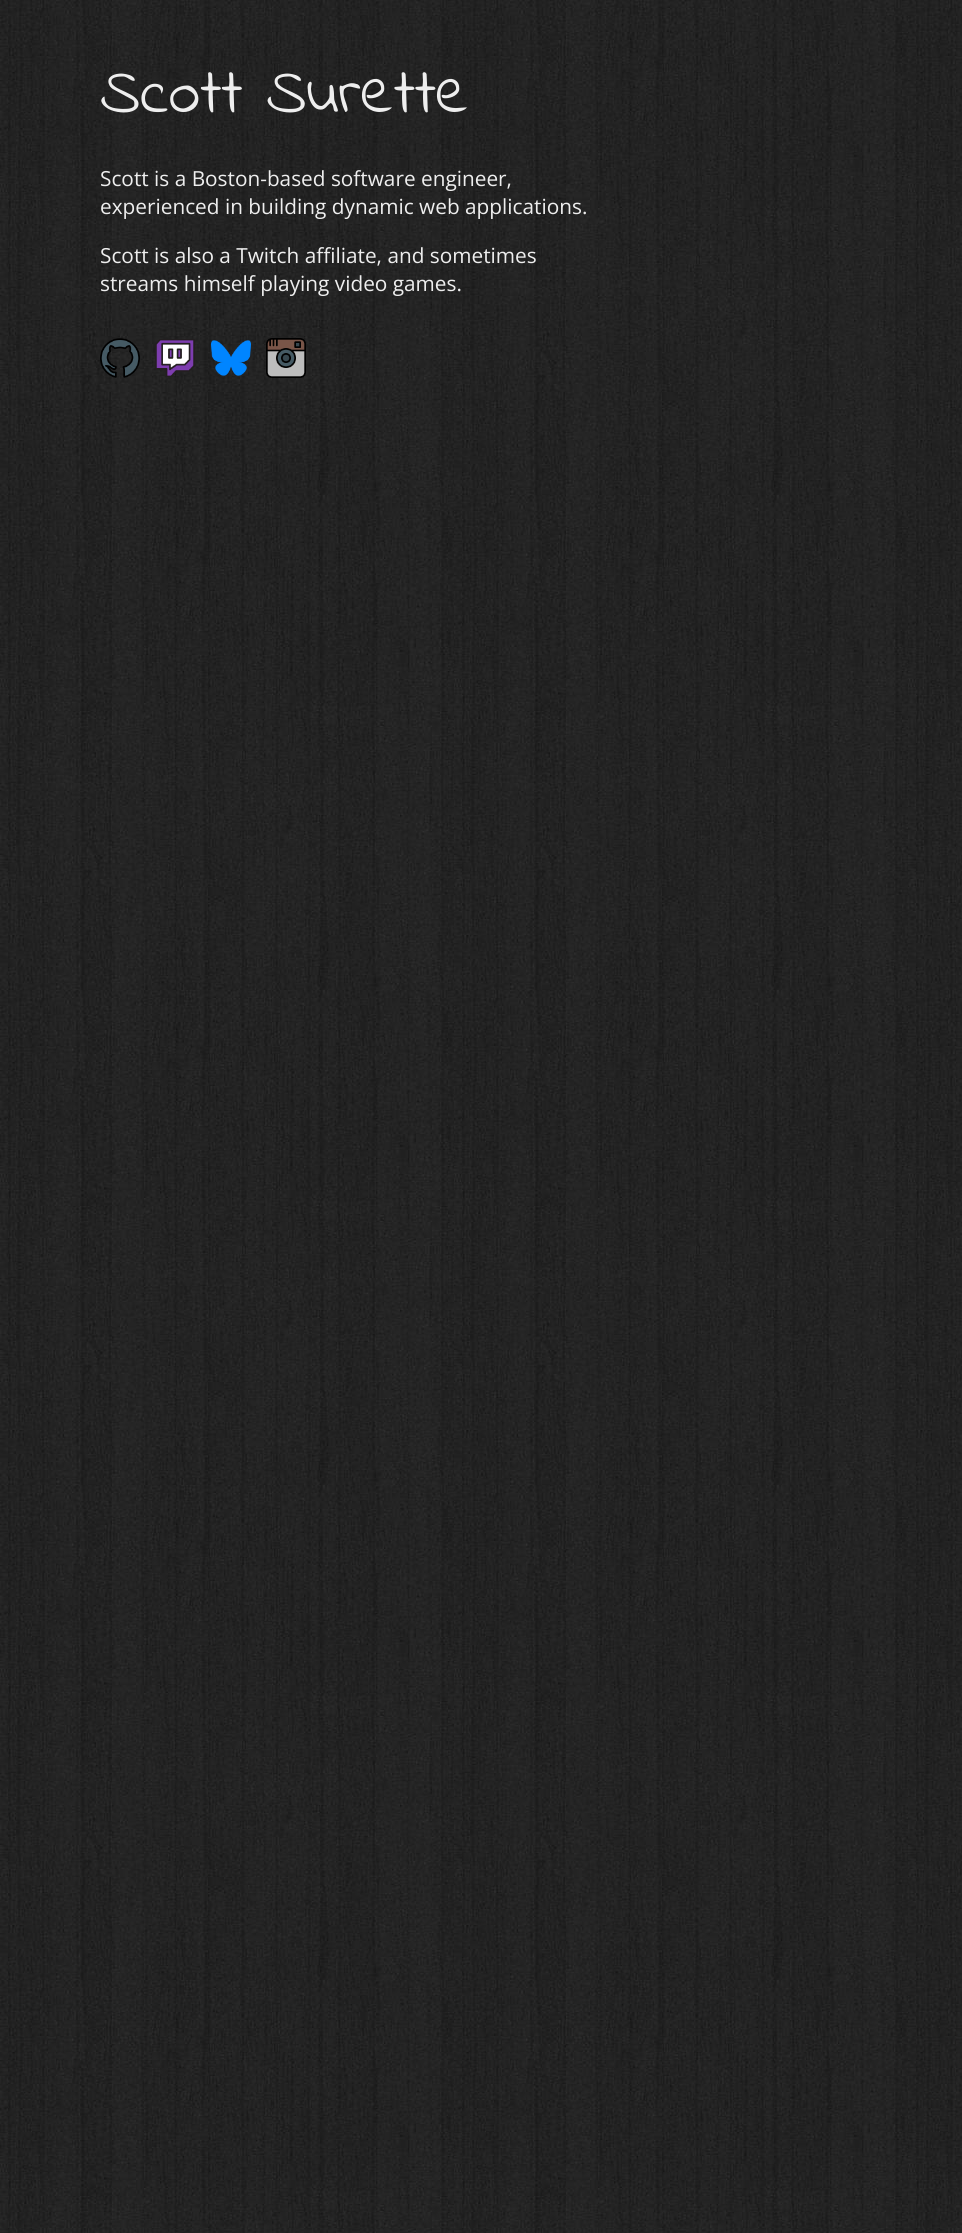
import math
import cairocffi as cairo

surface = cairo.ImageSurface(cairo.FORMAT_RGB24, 962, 2233)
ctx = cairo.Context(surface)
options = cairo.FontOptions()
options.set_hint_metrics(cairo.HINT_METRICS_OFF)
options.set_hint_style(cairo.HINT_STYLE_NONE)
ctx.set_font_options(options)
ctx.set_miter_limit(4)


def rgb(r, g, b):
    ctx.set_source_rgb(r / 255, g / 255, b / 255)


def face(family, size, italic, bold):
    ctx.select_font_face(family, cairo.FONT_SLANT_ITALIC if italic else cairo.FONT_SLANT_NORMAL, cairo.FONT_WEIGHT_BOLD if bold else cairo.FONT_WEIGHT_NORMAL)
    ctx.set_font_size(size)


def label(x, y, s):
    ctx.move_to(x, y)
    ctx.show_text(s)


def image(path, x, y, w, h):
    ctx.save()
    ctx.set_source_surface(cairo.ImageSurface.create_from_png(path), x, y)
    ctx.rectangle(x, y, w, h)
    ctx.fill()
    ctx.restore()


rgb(255, 255, 255)
ctx.paint()
image('image0.png', 0, 0, 962, 2233)
face('Indie Flower', 64, 0, 0)
rgb(238, 238, 238)
label(100, 112, 'Scott Surette')
face('Open Sans', 20.8, 0, 0)
label(100, 186, 'Scott is a Boston-based software engineer,')
label(100, 214, 'experienced in building dynamic web applications.')
label(100, 263, 'Scott is also a Twitch affiliate, and sometimes')
label(100, 291, 'streams himself playing video games.')
image('image1.png', 100, 338, 40, 40)
image('image2.png', 155, 339, 40, 38)
image('image3.png', 211, 340, 40, 36)
image('image4.png', 266, 338, 40, 40)
surface.write_to_png('render.png')
